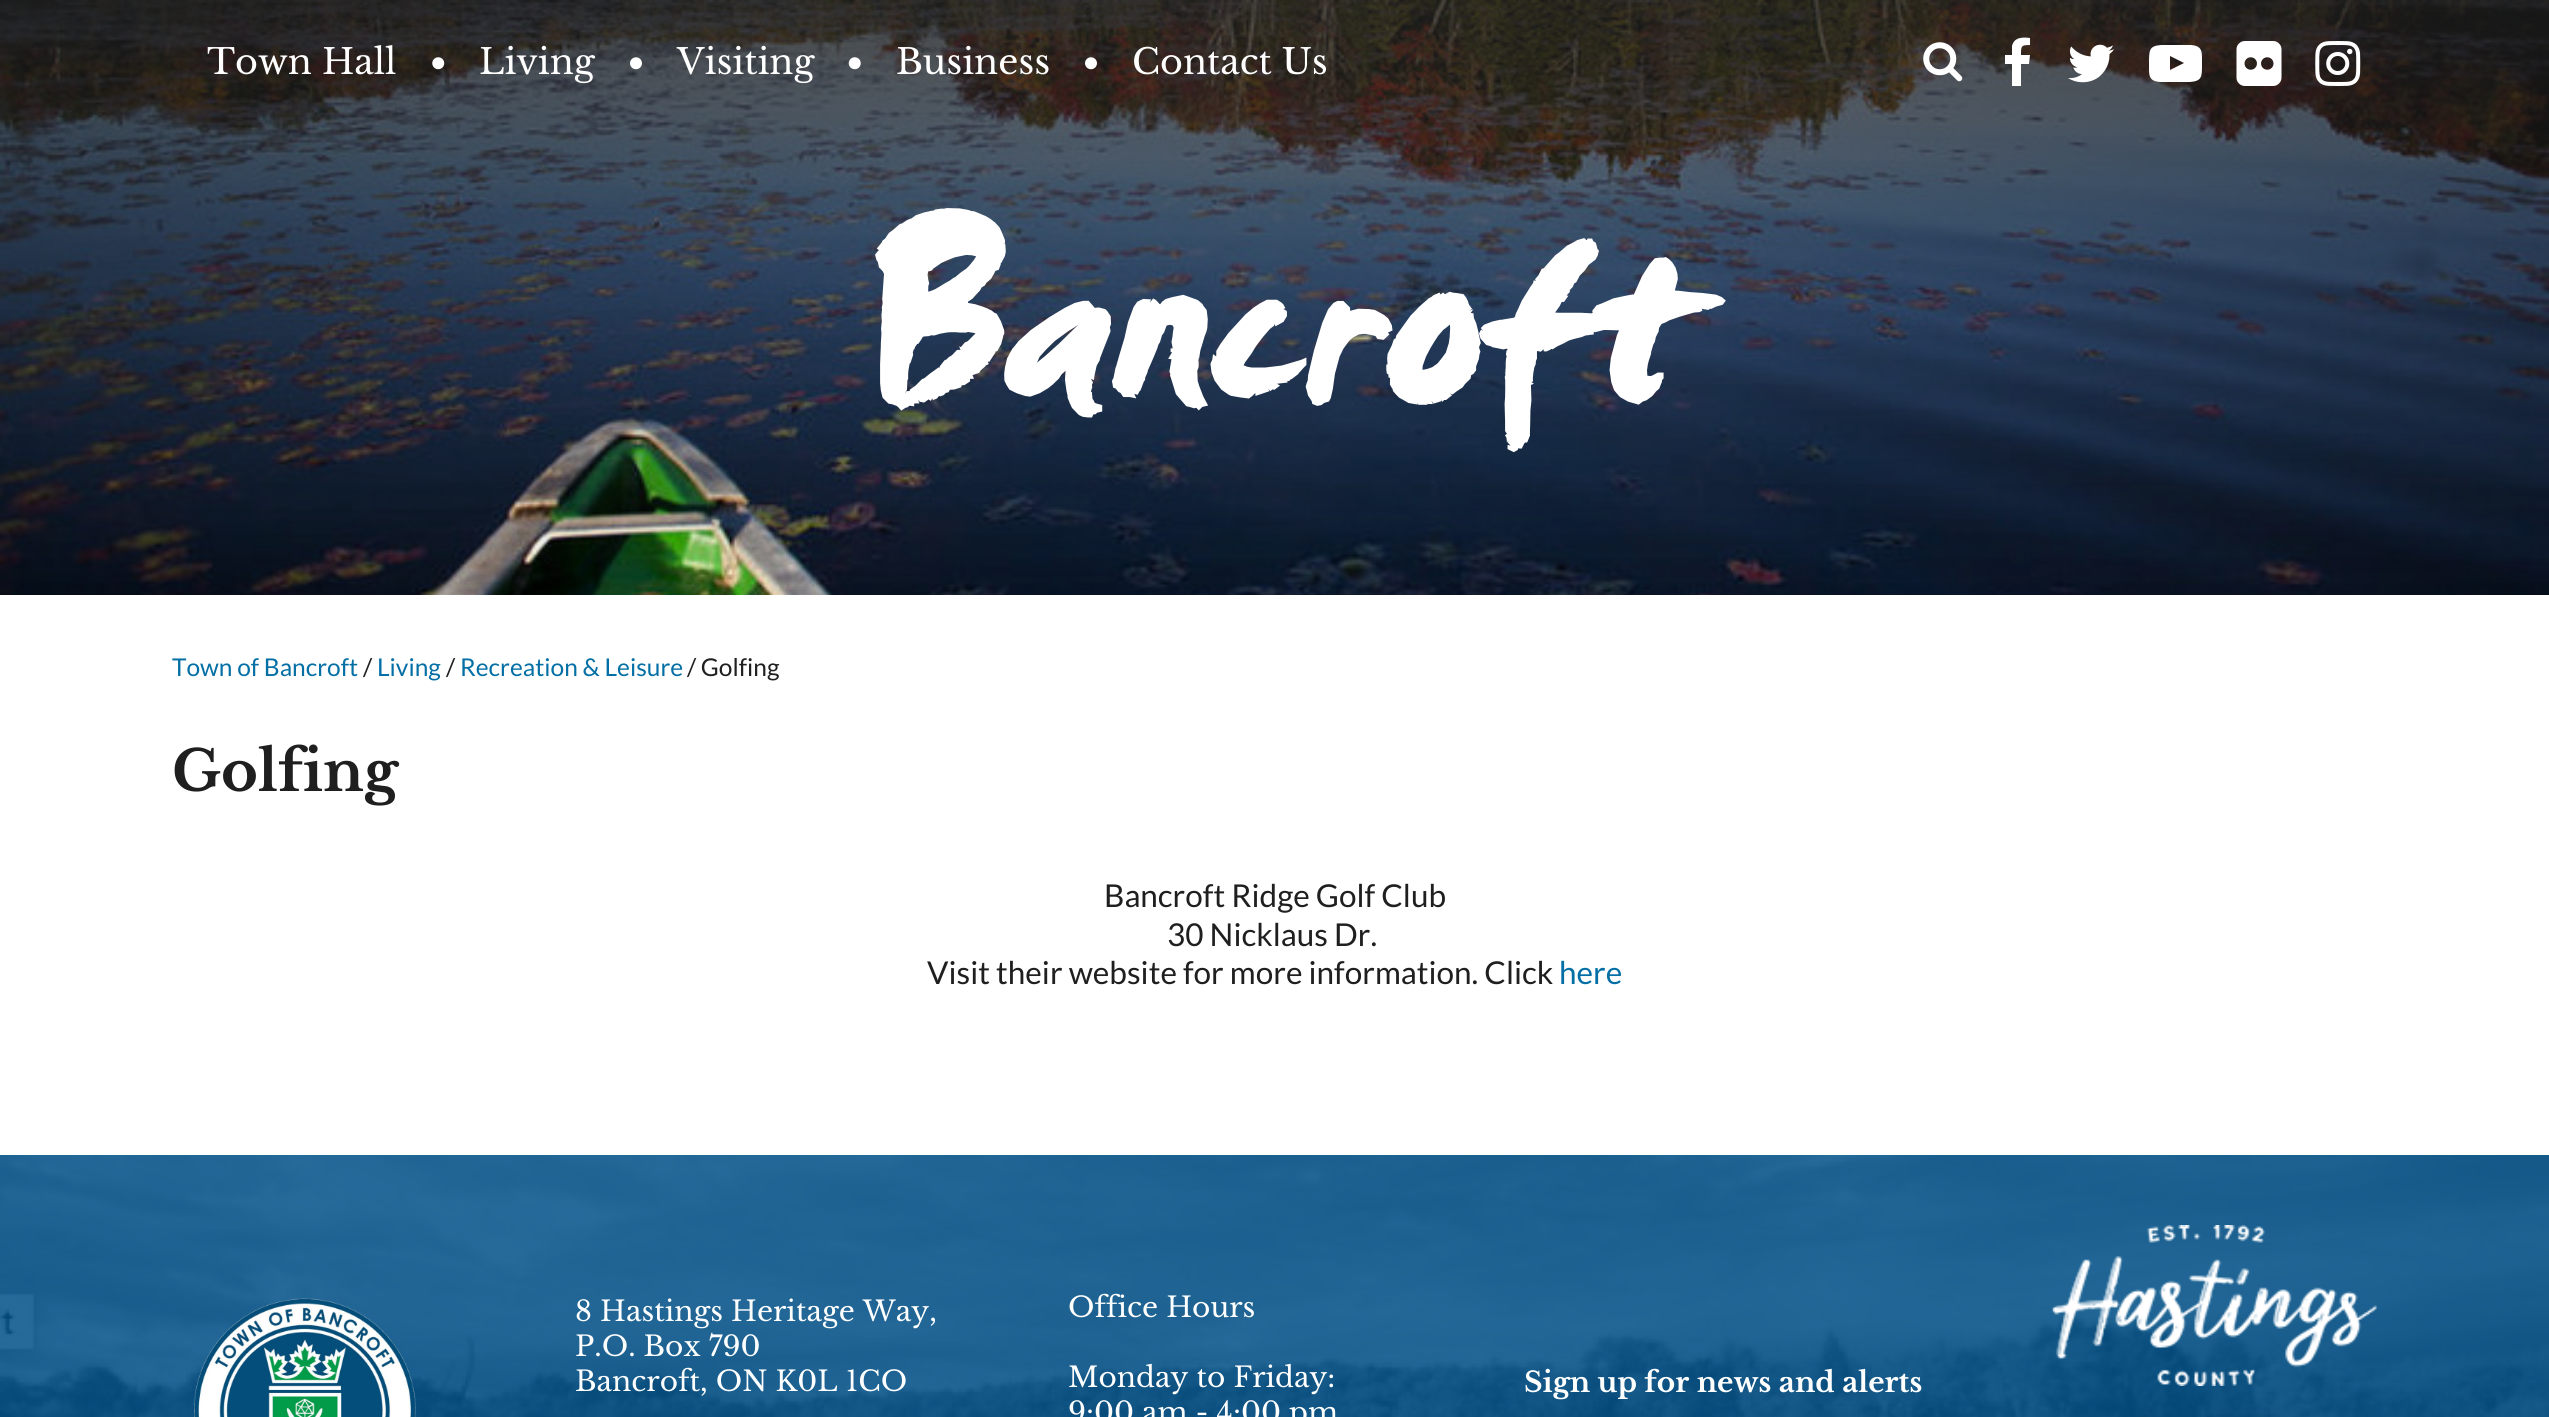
import math
import cairocffi as cairo

surface = cairo.ImageSurface(cairo.FORMAT_RGB24, 2549, 1417)
ctx = cairo.Context(surface)
options = cairo.FontOptions()
options.set_hint_metrics(cairo.HINT_METRICS_OFF)
options.set_hint_style(cairo.HINT_STYLE_NONE)
ctx.set_font_options(options)
ctx.set_miter_limit(4)


def rgb(r, g, b):
    ctx.set_source_rgb(r / 255, g / 255, b / 255)


def face(family, size, italic, bold):
    ctx.select_font_face(family, cairo.FONT_SLANT_ITALIC if italic else cairo.FONT_SLANT_NORMAL, cairo.FONT_WEIGHT_BOLD if bold else cairo.FONT_WEIGHT_NORMAL)
    ctx.set_font_size(size)


def label(x, y, s):
    ctx.move_to(x, y)
    ctx.show_text(s)


def image(path, x, y, w, h):
    ctx.save()
    ctx.set_source_surface(cairo.ImageSurface.create_from_png(path), x, y)
    ctx.rectangle(x, y, w, h)
    ctx.fill()
    ctx.restore()


rgb(255, 255, 255)
ctx.paint()
image('image0.png', 0, 0, 2549, 595)
face('Libre Baskerville', 35, 0, 0)
rgb(255, 255, 255)
label(207, 74, 'Town Hall')
image('image1.png', 432, 57, 13, 13)
label(479, 74, 'Living')
image('image2.png', 630, 57, 12, 13)
label(677, 74, 'Visiting')
image('image3.png', 848, 57, 13, 13)
label(896, 74, 'Business')
image('image4.png', 1085, 57, 12, 13)
label(1132, 74, 'Contact Us')
image('image5.png', 1923, 42, 40, 40)
ctx.new_path()
ctx.move_to(2030, 38)
ctx.line_to(2030, 45)
ctx.curve_to(2021, 45, 2021, 46, 2021, 55)
ctx.line_to(2030, 55)
ctx.line_to(2029, 64)
ctx.line_to(2021, 64)
ctx.line_to(2021, 86)
ctx.line_to(2012, 86)
ctx.line_to(2012, 64)
ctx.line_to(2005, 64)
ctx.line_to(2005, 55)
ctx.line_to(2012, 55)
ctx.line_to(2012, 46)
ctx.curve_to(2014, 37, 2023, 37, 2030, 38)
ctx.close_path()
ctx.fill()
image('image6.png', 2068, 44, 46, 39)
ctx.new_path()
ctx.move_to(2170, 70)
ctx.line_to(2184, 63)
ctx.line_to(2170, 56)
ctx.close_path()
ctx.move_to(2175, 45)
ctx.line_to(2191, 45)
ctx.curve_to(2203, 46, 2202, 52, 2202, 64)
ctx.curve_to(2202, 77, 2202, 81, 2190, 82)
ctx.line_to(2160, 82)
ctx.curve_to(2148, 81, 2149, 75, 2149, 64)
ctx.curve_to(2149, 50, 2149, 46, 2161, 45)
ctx.close_path()
ctx.fill()
image('image7.png', 2236, 41, 46, 45)
image('image8.png', 2315, 41, 46, 45)
face('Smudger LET', 252, 0, 1)
label(862, 392, 'Bancroft')
face('Lato', 24.5, 0, 0)
rgb(3, 111, 165)
label(172, 676, 'Town of Bancroft')
rgb(31, 31, 31)
label(363, 676, '/')
rgb(3, 111, 165)
label(377, 676, 'Living')
rgb(31, 31, 31)
label(446, 676, '/')
rgb(3, 111, 165)
label(460, 676, 'Recreation & Leisure')
rgb(31, 31, 31)
label(687, 676, '/ Golfing')
face('Libre Baskerville', 56, 0, 1)
label(172, 791, 'Golfing')
face('Lato', 31.5, 0, 0)
label(1104, 907, 'Bancroft Ridge Golf Club')
label(1167, 946, '30 Nicklaus Dr.')
label(927, 984, 'Visit their website for more information. Click')
rgb(3, 111, 165)
label(1559, 984, 'here')
image('image9.png', 0, 1155, 2549, 262)
image('image10.png', 194, 1298, 222, 119)
face('Libre Baskerville', 28, 0, 0)
rgb(255, 255, 255)
label(575, 1321, '8 Hastings Heritage Way,')
label(575, 1356, 'P.O. Box 790')
label(575, 1391, 'Bancroft, ON K0L 1CO')
label(1068, 1317, 'Office Hours')
label(1068, 1387, 'Monday to Friday:')
label(1068, 1422, '9:00 am - 4:00 pm')
face('Libre Baskerville', 28, 0, 1)
label(1524, 1392, 'Sign up for news and alerts')
image('image11.png', 2052, 1225, 325, 161)
image('image12.png', 2137, 1414, 143, 3)
surface.write_to_png('render.png')
